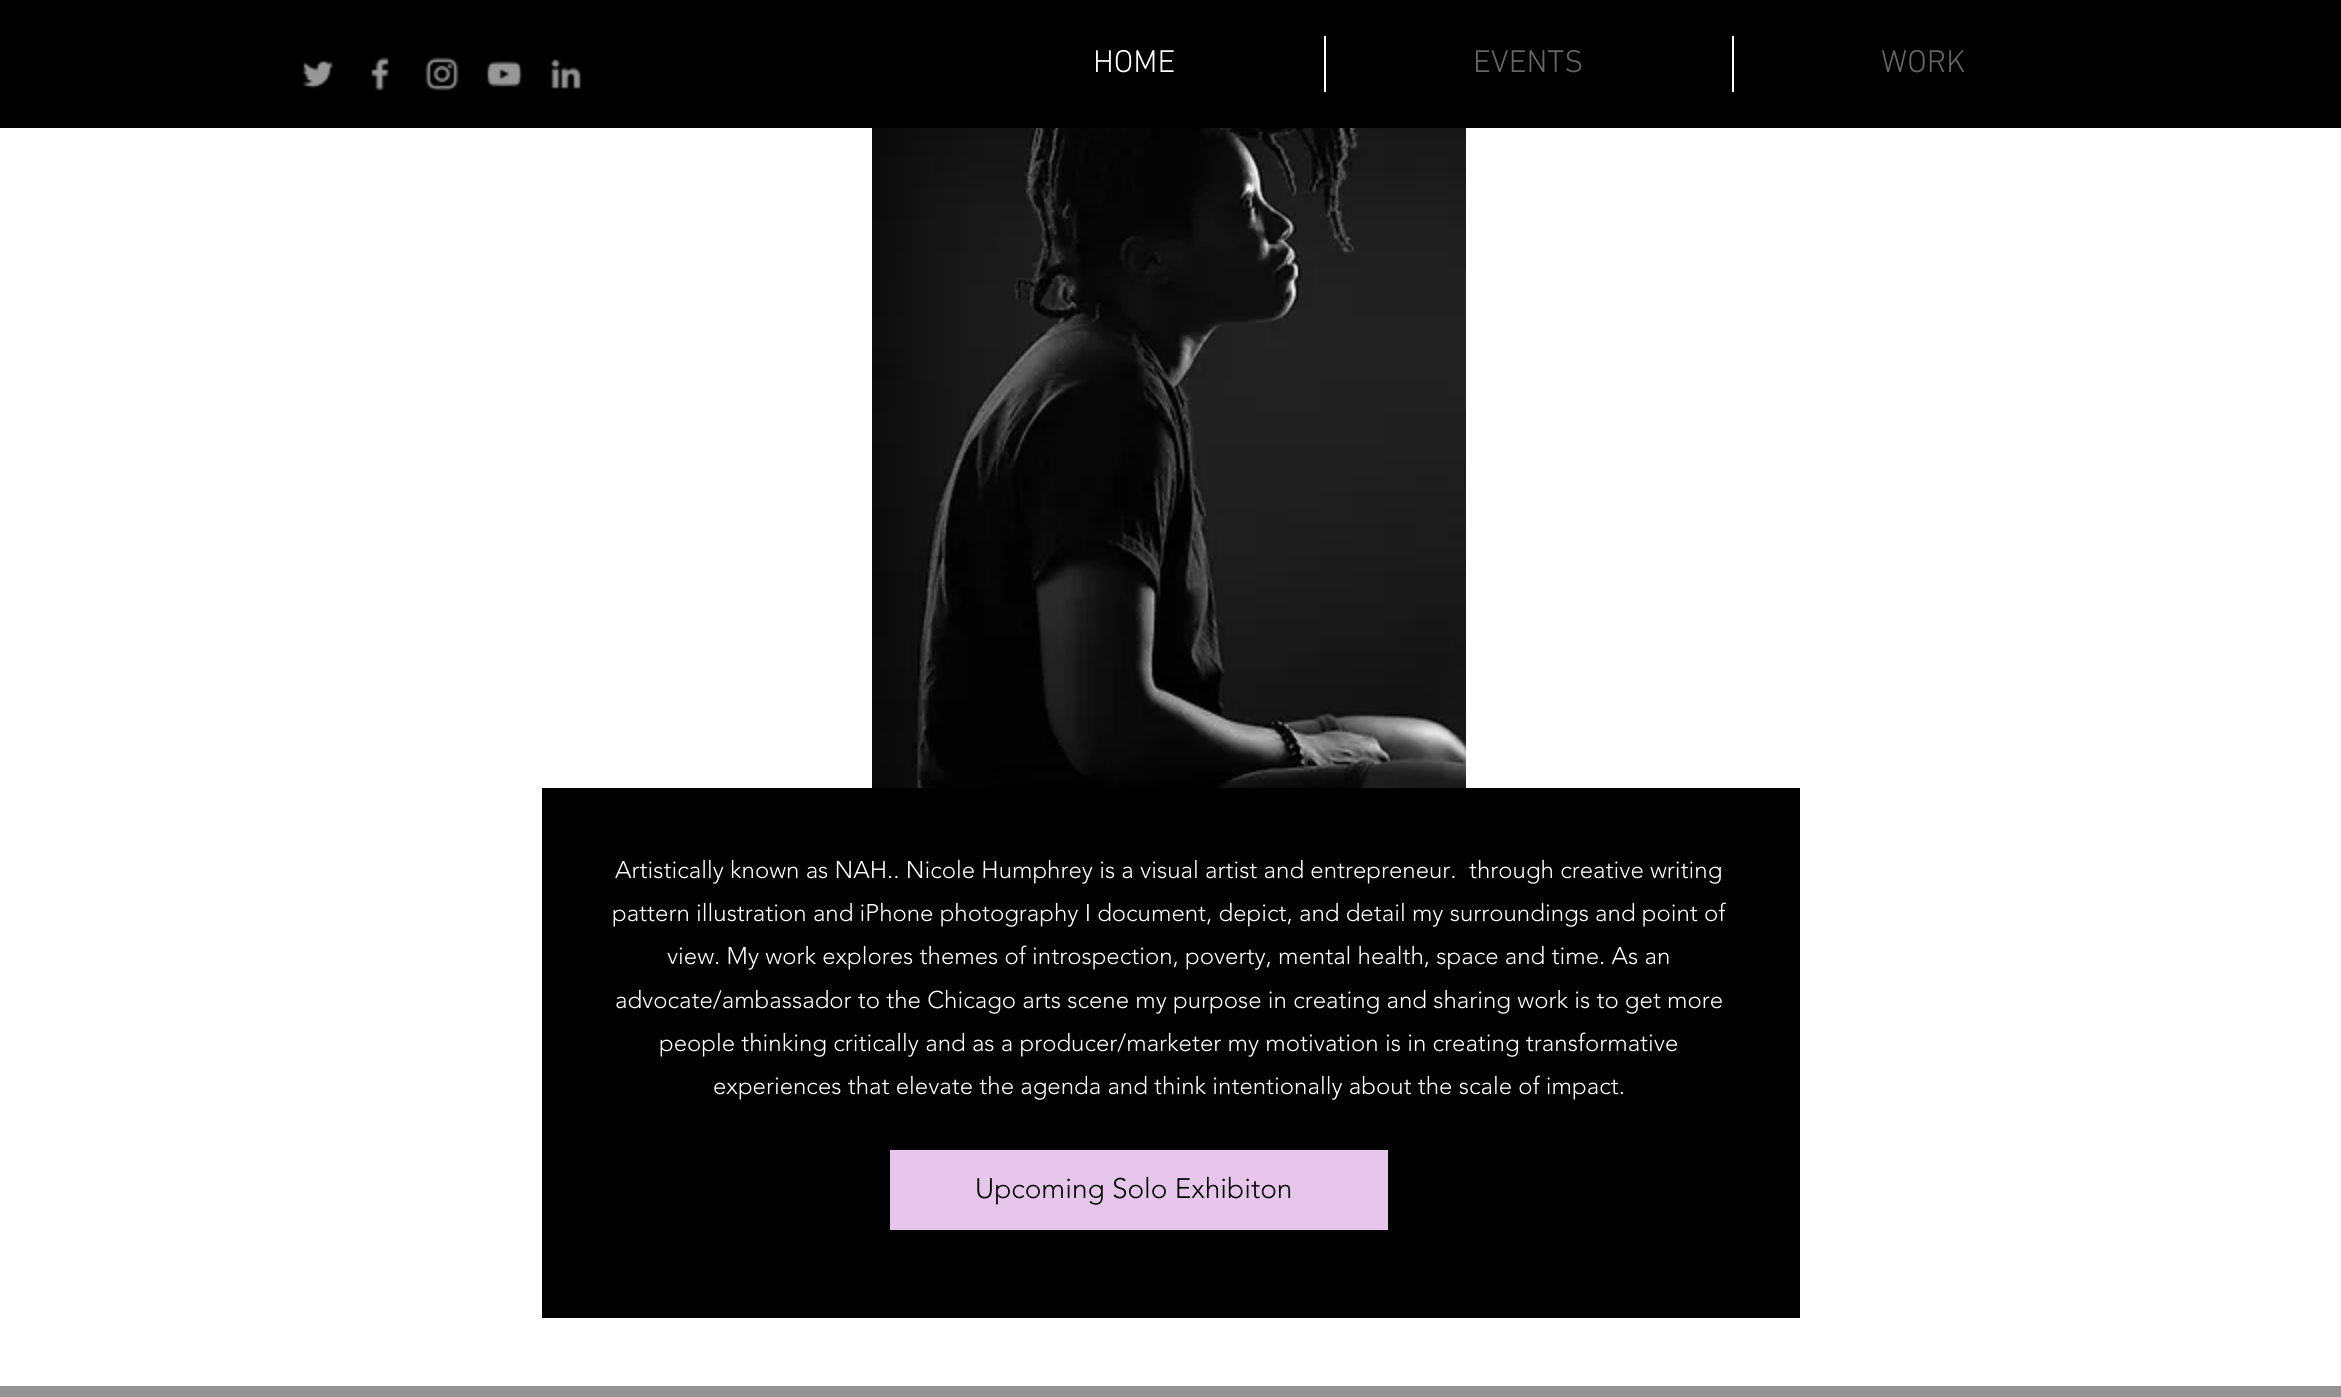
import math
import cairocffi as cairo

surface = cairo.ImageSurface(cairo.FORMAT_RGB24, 2341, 1397)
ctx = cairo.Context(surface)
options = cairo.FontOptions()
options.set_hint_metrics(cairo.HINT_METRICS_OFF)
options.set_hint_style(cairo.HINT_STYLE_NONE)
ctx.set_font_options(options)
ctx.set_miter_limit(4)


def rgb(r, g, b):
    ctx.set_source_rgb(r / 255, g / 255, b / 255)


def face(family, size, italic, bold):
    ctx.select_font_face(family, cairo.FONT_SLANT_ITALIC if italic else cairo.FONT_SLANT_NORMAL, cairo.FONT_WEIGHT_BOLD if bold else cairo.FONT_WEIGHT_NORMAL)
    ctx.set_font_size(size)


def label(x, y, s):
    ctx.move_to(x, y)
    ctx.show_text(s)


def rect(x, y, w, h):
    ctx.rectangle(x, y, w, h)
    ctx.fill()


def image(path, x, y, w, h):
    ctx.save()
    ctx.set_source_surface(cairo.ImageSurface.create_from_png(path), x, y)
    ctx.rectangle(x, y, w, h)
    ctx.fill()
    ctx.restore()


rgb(255, 255, 255)
ctx.paint()
rgb(0, 0, 0)
rect(0, 0, 2341, 128)
image('image0.png', 302, 60, 32, 29)
image('image1.png', 371, 57, 18, 34)
image('image2.png', 425, 57, 34, 34)
image('image3.png', 486, 61, 37, 26)
image('image4.png', 551, 59, 30, 30)
face('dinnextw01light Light', 32, 0, 0)
rgb(255, 255, 255)
label(1093, 72, 'HOME')
rect(1324, 36, 2, 56)
rgb(102, 102, 102)
label(1473, 72, 'EVENTS')
rgb(255, 255, 255)
rect(1732, 36, 2, 56)
rgb(102, 102, 102)
label(1881, 72, 'WORK')
image('image5.png', 872, 128, 594, 660)
rgb(0, 0, 0)
rect(542, 788, 1258, 530)
face('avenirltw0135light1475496 Light', 24, 0, 0)
rgb(255, 255, 255)
label(615, 878, 'Artistically known as NAH.. Nicole Humphrey is a visual artist and entrepreneur.')
label(1469, 878, 'through creative writing')
label(612, 921, 'pattern illustration and iPhone photography I document, depict, and detail my surroundings and point of')
label(667, 964, 'view. My work explores themes of introspection, poverty, mental health, space and time. As an')
label(615, 1008, 'advocate/ambassador to the Chicago arts scene my purpose in creating and sharing work is to get more')
label(659, 1051, 'people thinking critically and as a producer/marketer my motivation is in creating transformative')
label(713, 1094, 'experiences that elevate the agenda and think intentionally about the scale of impact.')
rgb(230, 199, 235)
rect(890, 1150, 498, 80)
face('avenirltw0135light1475496 Light', 28, 0, 0)
rgb(0, 0, 0)
label(975, 1198, 'Upcoming Solo Exhibiton')
rgb(148, 148, 148)
rect(0, 1386, 2341, 11)
surface.write_to_png('render.png')
